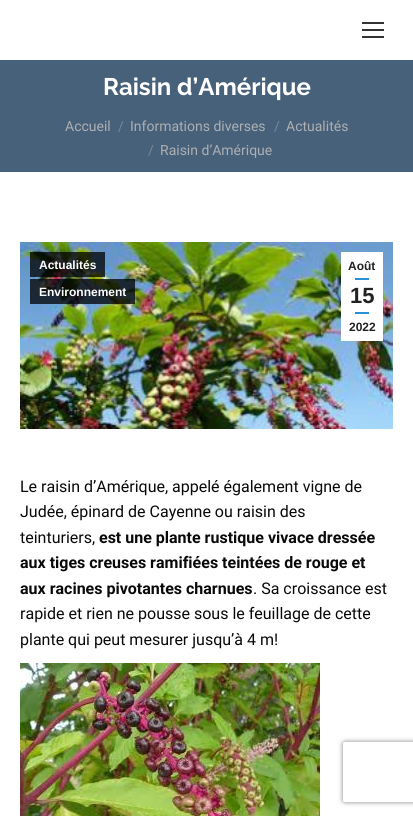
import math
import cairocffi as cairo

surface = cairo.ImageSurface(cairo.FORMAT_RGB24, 413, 816)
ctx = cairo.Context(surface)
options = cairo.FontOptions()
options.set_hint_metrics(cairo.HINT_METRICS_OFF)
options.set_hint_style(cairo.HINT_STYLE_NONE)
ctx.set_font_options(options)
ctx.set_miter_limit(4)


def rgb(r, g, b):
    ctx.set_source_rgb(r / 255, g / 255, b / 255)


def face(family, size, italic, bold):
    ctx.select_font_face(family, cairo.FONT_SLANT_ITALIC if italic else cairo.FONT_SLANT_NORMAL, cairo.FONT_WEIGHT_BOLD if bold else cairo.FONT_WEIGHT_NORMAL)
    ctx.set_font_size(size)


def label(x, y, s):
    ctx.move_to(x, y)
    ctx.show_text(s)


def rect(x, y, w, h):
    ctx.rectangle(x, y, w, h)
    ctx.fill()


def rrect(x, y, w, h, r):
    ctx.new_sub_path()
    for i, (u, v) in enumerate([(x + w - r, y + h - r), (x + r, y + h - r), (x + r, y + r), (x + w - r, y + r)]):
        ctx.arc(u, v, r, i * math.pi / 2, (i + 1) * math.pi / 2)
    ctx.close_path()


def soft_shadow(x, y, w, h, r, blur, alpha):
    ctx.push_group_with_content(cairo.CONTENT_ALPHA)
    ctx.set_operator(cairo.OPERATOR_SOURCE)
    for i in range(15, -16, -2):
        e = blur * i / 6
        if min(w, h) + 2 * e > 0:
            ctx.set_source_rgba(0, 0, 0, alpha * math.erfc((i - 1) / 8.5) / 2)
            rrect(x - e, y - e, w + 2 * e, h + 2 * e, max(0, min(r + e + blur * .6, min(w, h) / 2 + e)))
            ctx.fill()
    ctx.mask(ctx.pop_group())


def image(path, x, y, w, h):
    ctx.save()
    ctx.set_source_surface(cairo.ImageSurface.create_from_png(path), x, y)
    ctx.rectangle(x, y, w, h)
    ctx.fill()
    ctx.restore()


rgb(255, 255, 255)
ctx.paint()
rgb(51, 51, 51)
rect(362, 22, 22, 2)
rect(362, 29, 22, 2)
rect(362, 36, 22, 2)
rgb(71, 97, 122)
rect(0, 60, 413, 112)
face('Raleway', 24, 0, 1)
rgb(255, 255, 255)
label(103, 95, 'Raisin d’Amérique')
face('Roboto', 14, 0, 0)
rgb(173, 175, 179)
label(65, 131, 'Accueil')
rgb(122, 136, 151)
label(118, 131, '/')
rgb(173, 175, 179)
label(130, 131, 'Informations diverses')
rgb(122, 136, 151)
label(274, 131, '/')
rgb(173, 175, 179)
label(286, 131, 'Actualités')
rgb(122, 136, 151)
label(148, 155, '/')
rgb(173, 175, 179)
label(160, 155, 'Raisin d’Amérique')
image('image0.png', 20, 242, 373, 187)
ctx.set_source_rgba(0, 0, 0, 0.75)
rect(30, 252, 75, 25)
face('Liberation Sans', 12, 0, 1)
rgb(255, 255, 255)
label(39, 269, 'Actualités')
ctx.set_source_rgba(0, 0, 0, 0.75)
rect(30, 279, 105, 25)
rgb(255, 255, 255)
label(39, 296, 'Environnement')
rect(341, 252, 42, 89)
rgb(34, 34, 34)
label(348, 270, 'Août')
rgb(41, 145, 214)
rect(355, 278, 14, 2)
face('Liberation Sans', 22, 0, 1)
rgb(34, 34, 34)
label(350, 303, '15')
rgb(41, 145, 214)
rect(355, 312, 14, 2)
face('Liberation Sans', 12, 0, 1)
rgb(34, 34, 34)
label(349, 331, '2022')
face('Roboto', 16, 0, 0)
rgb(10, 9, 9)
label(20, 492, 'Le raisin d’Amérique, appelé également vigne de')
label(20, 517, 'Judée, épinard de Cayenne ou raisin des')
label(20, 543, 'teinturiers,')
face('Roboto', 16, 0, 1)
label(99, 543, 'est une plante rustique vivace dressée')
label(20, 568, 'aux tiges creuses ramifiées teintées de rouge et')
label(20, 594, 'aux racines pivotantes charnues')
face('Roboto', 16, 0, 0)
label(253, 594, '. Sa croissance est')
label(20, 619, 'rapide et rien ne pousse sous le feuillage de cette')
label(20, 645, 'plante qui peut mesurer jusqu’à 4 m!')
image('image1.png', 20, 663, 300, 153)
ctx.save()
ctx.set_fill_rule(cairo.FILL_RULE_EVEN_ODD)
ctx.new_path()
ctx.move_to(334, 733)
ctx.line_to(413, 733)
ctx.line_to(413, 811)
ctx.line_to(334, 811)
ctx.close_path()
ctx.move_to(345, 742)
ctx.line_to(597, 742)
ctx.curve_to(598, 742, 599, 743, 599, 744)
ctx.line_to(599, 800)
ctx.curve_to(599, 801, 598, 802, 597, 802)
ctx.line_to(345, 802)
ctx.curve_to(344, 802, 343, 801, 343, 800)
ctx.line_to(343, 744)
ctx.curve_to(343, 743, 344, 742, 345, 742)
ctx.close_path()
ctx.clip()
rgb(128, 128, 128)
soft_shadow(343, 742, 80, 60, 2, 2.5, 1)
ctx.restore()
surface.write_to_png('render.png')
